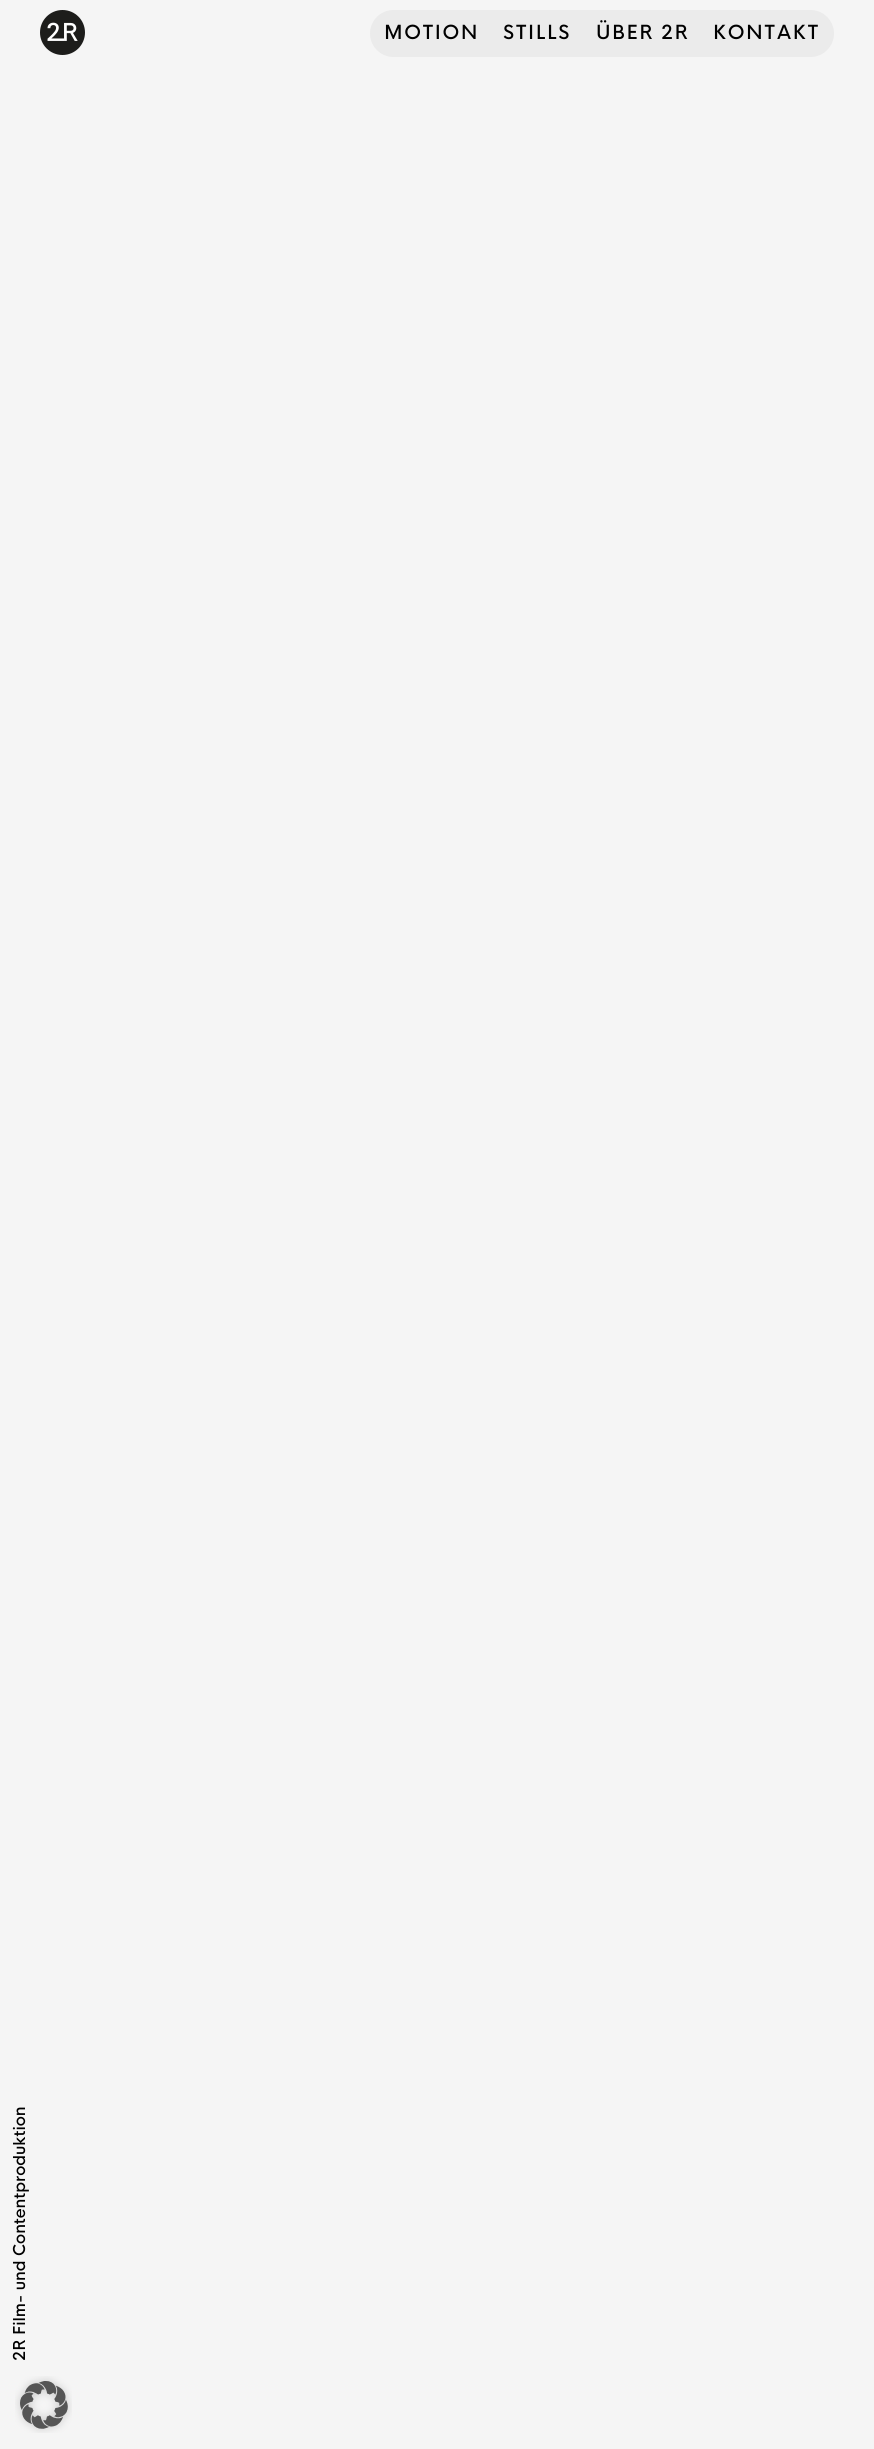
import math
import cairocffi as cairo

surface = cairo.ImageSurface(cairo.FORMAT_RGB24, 874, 2449)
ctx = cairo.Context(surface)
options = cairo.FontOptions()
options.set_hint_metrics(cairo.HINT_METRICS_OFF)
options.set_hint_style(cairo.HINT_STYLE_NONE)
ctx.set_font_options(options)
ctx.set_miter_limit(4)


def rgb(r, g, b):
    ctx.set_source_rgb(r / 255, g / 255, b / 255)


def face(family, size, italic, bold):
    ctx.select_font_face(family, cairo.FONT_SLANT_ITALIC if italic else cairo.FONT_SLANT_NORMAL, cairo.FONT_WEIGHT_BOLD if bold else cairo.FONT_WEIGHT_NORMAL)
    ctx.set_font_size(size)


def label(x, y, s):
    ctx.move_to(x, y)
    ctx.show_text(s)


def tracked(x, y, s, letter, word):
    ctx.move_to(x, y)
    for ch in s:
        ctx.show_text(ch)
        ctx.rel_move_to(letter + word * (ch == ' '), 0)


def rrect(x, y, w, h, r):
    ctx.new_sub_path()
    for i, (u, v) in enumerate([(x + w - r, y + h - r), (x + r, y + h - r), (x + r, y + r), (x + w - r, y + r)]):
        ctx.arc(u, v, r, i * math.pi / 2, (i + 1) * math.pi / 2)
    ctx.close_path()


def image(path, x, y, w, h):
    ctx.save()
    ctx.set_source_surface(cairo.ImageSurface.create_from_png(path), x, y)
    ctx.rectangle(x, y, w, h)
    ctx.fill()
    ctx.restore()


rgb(245, 245, 245)
ctx.paint()
image('image0.png', 40, 10, 45, 45)
rgb(235, 235, 235)
rrect(370, 10, 464, 47, 23.5)
ctx.fill()
face('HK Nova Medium', 19, 0, 0)
rgb(0, 0, 0)
tracked(384, 39, 'MOTION', 1.5, 0)
tracked(503, 39, 'STILLS', 1.5, 0)
tracked(596, 39, 'ÜBER 2R', 1.5, 0)
tracked(713, 39, 'KONTAKT', 1.5, 0)
face('HK Nova Medium', 16, 0, 0)
ctx.save()
ctx.translate(25, 2361)
ctx.rotate(-90 * math.pi / 180)
label(0, 0, '2R Film- und Contentproduktion')
ctx.restore()
image('image1.png', 15, 2376, 57, 57)
surface.write_to_png('render.png')
